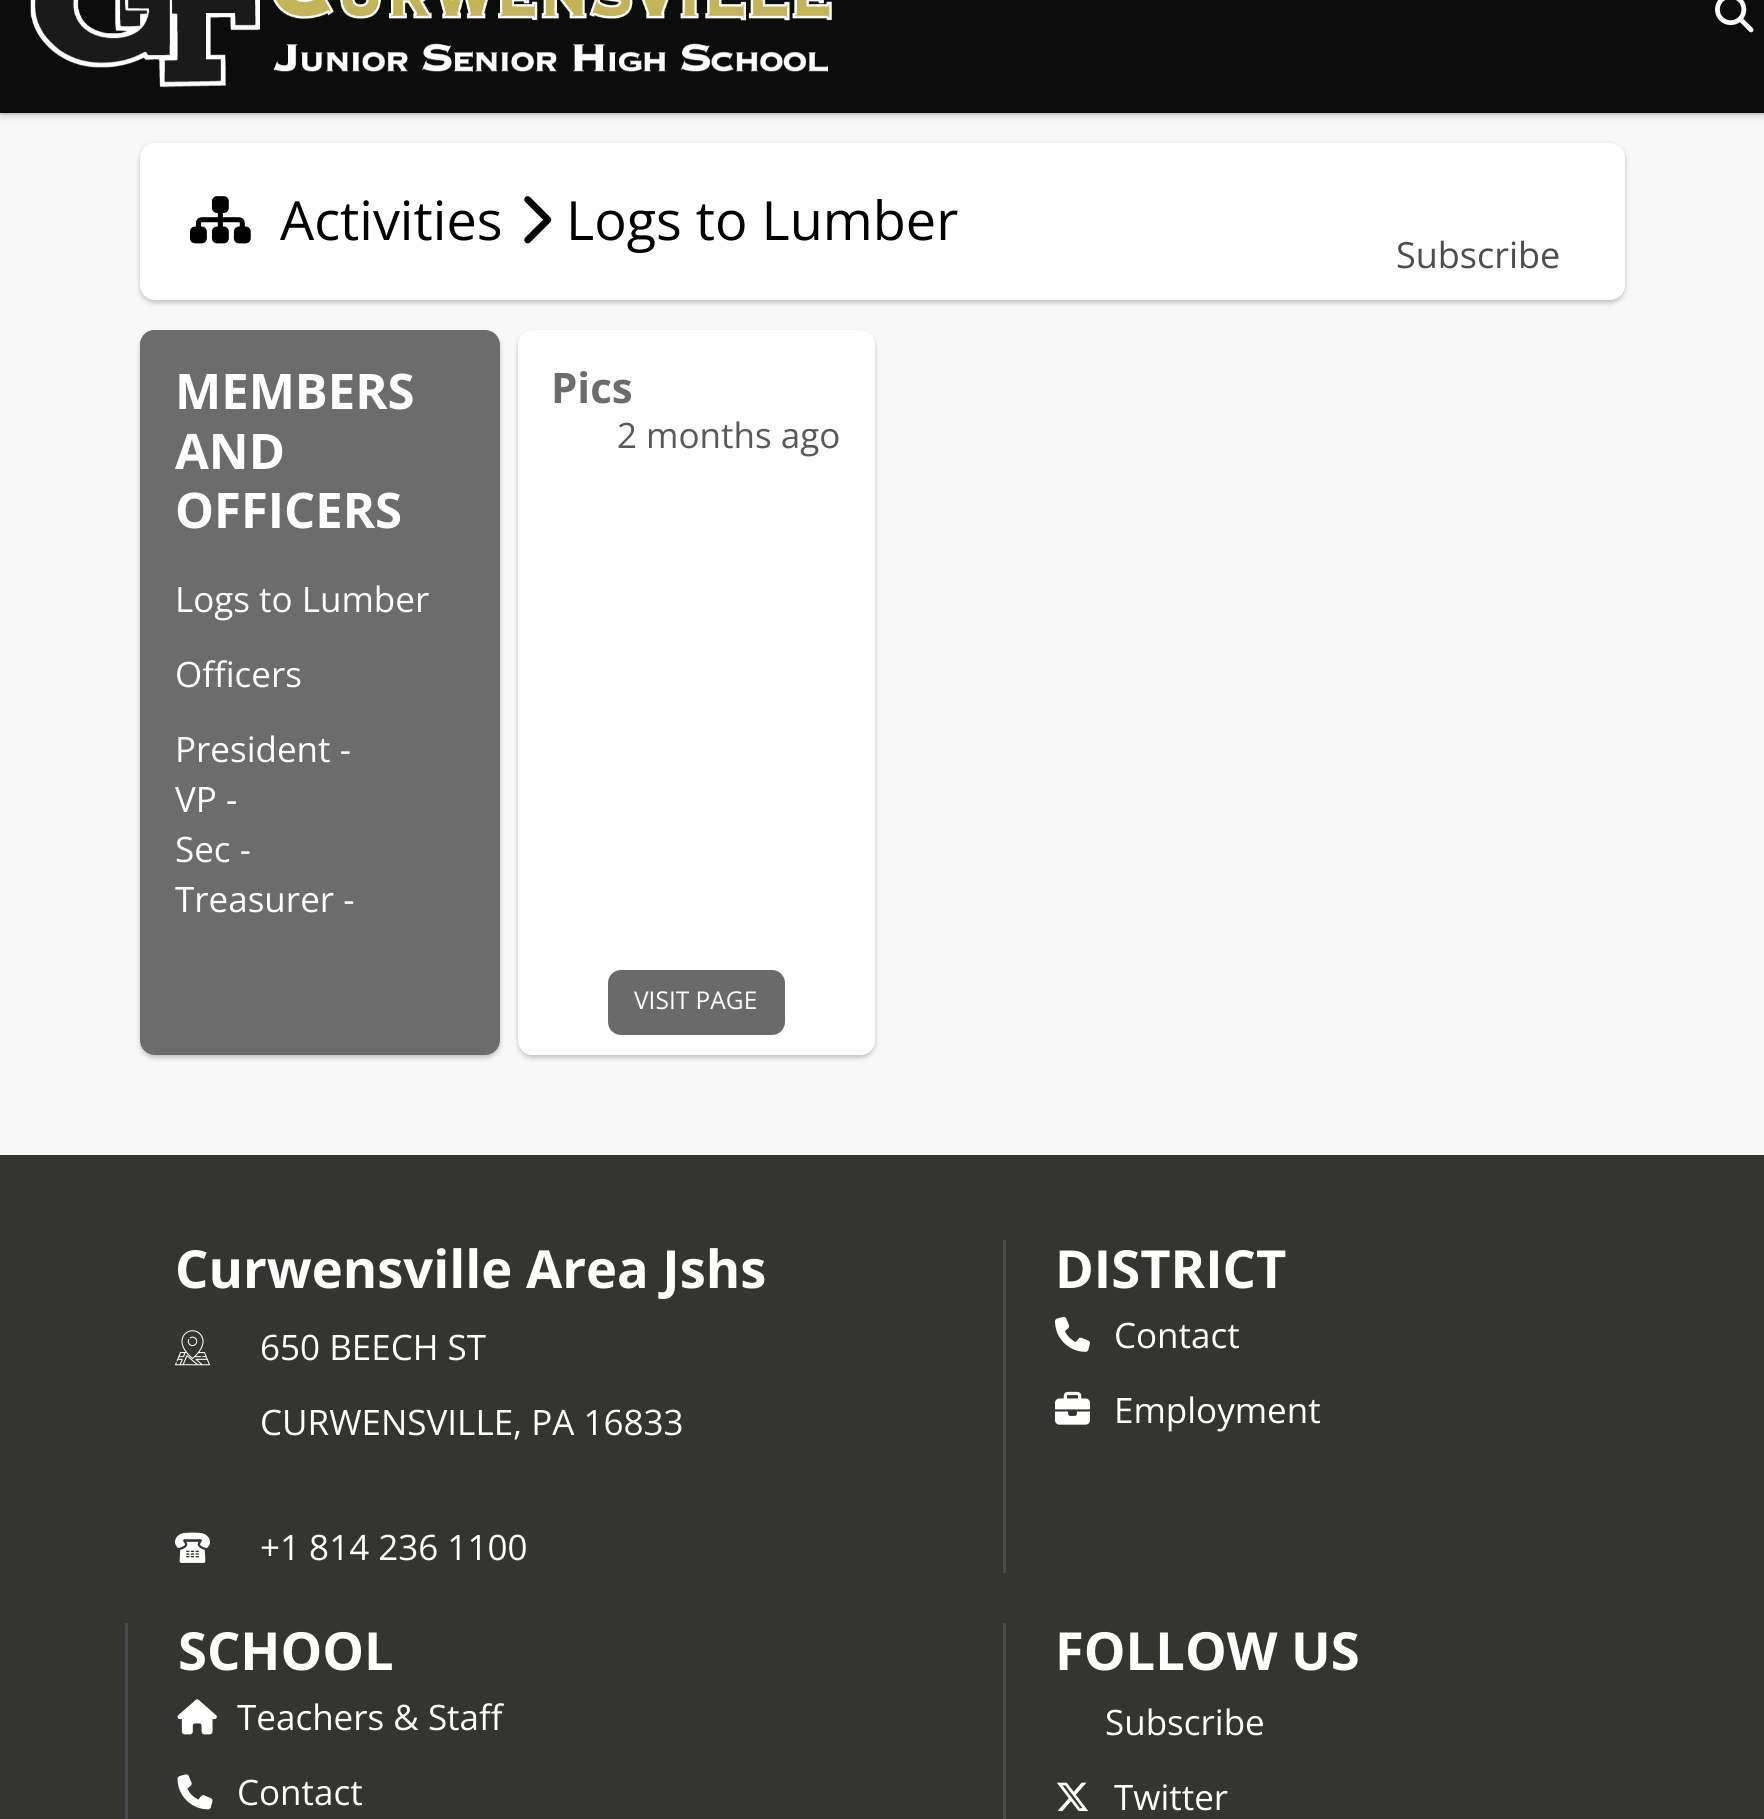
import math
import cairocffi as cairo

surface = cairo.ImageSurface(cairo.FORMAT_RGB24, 1764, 1819)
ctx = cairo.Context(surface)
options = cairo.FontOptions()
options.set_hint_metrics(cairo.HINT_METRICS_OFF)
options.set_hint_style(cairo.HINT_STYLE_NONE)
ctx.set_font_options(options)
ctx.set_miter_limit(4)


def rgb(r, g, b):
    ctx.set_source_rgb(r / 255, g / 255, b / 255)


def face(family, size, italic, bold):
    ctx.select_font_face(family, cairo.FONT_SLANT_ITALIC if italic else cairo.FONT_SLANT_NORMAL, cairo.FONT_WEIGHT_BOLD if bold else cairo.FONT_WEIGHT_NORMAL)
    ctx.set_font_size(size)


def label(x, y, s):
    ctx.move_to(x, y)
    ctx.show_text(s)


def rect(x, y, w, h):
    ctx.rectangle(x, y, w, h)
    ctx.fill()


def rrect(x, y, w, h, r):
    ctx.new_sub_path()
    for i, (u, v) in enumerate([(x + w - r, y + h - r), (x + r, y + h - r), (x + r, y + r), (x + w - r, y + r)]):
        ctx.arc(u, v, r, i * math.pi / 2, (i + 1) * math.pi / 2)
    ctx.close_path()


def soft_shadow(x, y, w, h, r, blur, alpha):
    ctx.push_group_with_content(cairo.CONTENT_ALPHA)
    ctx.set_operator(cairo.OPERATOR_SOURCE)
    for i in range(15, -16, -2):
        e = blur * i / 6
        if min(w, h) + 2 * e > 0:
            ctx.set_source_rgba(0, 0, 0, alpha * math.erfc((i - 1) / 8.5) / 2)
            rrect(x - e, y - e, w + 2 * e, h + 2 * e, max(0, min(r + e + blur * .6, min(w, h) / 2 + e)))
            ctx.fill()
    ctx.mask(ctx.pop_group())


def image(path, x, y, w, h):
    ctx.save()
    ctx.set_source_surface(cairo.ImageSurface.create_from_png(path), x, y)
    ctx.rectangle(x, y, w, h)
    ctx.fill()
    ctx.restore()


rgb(248, 248, 248)
ctx.paint()
rgb(223, 223, 223)
rect(0, 112, 1764, 3)
ctx.save()
ctx.set_fill_rule(cairo.FILL_RULE_EVEN_ODD)
ctx.new_path()
ctx.move_to(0, 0)
ctx.line_to(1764, 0)
ctx.line_to(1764, 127)
ctx.line_to(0, 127)
ctx.close_path()
ctx.move_to(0, -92)
ctx.line_to(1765, -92)
ctx.line_to(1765, 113)
ctx.line_to(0, 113)
ctx.close_path()
ctx.clip()
rgb(0, 0, 0)
soft_shadow(0, -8, 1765, 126, 0, 2.5, 0.1)
ctx.restore()
ctx.set_source_rgba(0, 0, 0, 0.95)
rect(0, 0, 1764, 113)
image('image0.png', 30, 0, 802, 88)
image('image1.png', 1715, 0, 39, 33)
rgb(0, 0, 0)
soft_shadow(140, 145, 1485, 158, 15, 2.5, 0.22)
rgb(255, 255, 255)
rrect(140, 143, 1485, 157, 15)
ctx.fill()
image('image2.png', 190, 196, 61, 48)
face('Open Sans', 54, 0, 0)
rgb(0, 0, 0)
label(280, 240, 'Activities')
image('image3.png', 524, 196, 28, 48)
label(566, 240, 'Logs to Lumber')
face('Open Sans', 36, 0, 0)
rgb(77, 77, 77)
label(1396, 268, 'Subscribe')
rgb(0, 0, 0)
soft_shadow(140, 333, 360, 725, 15, 2.5, 0.22)
rgb(108, 108, 108)
rrect(140, 330, 360, 725, 15)
ctx.fill()
ctx.new_path()
ctx.move_to(155, 330)
ctx.line_to(483, 330)
ctx.curve_to(491.5, 330, 498, 336.5, 498, 345)
ctx.line_to(498, 540)
ctx.line_to(140, 540)
ctx.line_to(140, 345)
ctx.curve_to(140, 336.5, 146.5, 330, 155, 330)
ctx.close_path()
ctx.fill()
face('Open Sans', 49, 0, 1)
rgb(255, 255, 255)
label(175, 409, 'MEMBERS')
label(175, 469, 'AND')
label(175, 528, 'OFFICERS')
face('Open Sans', 35, 0, 0)
label(175, 612, 'Logs to Lumber')
label(175, 687, 'Officers')
label(175, 762, 'President -')
label(175, 812, 'VP -')
label(175, 862, 'Sec -')
label(175, 912, 'Treasurer -')
ctx.save()
ctx.set_fill_rule(cairo.FILL_RULE_EVEN_ODD)
ctx.new_path()
ctx.move_to(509, 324)
ctx.line_to(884, 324)
ctx.line_to(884, 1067)
ctx.line_to(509, 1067)
ctx.close_path()
ctx.move_to(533, 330)
ctx.line_to(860, 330)
ctx.curve_to(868.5, 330, 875, 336.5, 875, 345)
ctx.line_to(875, 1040)
ctx.curve_to(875, 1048.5, 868.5, 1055, 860, 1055)
ctx.line_to(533, 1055)
ctx.curve_to(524.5, 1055, 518, 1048.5, 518, 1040)
ctx.line_to(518, 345)
ctx.curve_to(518, 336.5, 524.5, 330, 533, 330)
ctx.close_path()
ctx.clip()
rgb(0, 0, 0)
soft_shadow(518, 333, 357, 725, 15, 2.5, 0.22)
ctx.restore()
ctx.set_source_rgba(1, 1, 1, 0.9)
rrect(518, 330, 357, 725, 15)
ctx.fill()
face('Open Sans', 42, 0, 1)
rgb(108, 108, 108)
label(551, 403, 'Pics')
face('Open Sans', 35, 0, 0)
rgb(89, 89, 89)
label(617, 448, '2 months ago')
rgb(106, 106, 106)
rrect(608, 970, 177, 65, 13)
ctx.fill()
face('Open Sans', 24.5, 0, 0)
rgb(255, 255, 255)
label(634, 1009, 'VISIT PAGE')
rgb(52, 52, 48)
rect(0, 1155, 1764, 664)
face('Open Sans', 52.5, 0, 1)
rgb(255, 255, 255)
label(175, 1288, 'Curwensville Area Jshs')
image('image4.png', 175, 1330, 35, 36)
face('Open Sans', 35, 0, 0)
label(260, 1360, '650 BEECH ST')
label(260, 1435, 'CURWENSVILLE, PA 16833')
image('image5.png', 175, 1532, 35, 31)
label(260, 1560, '+1 814 236 1100')
rgb(73, 74, 77)
rect(1003, 1240, 3, 333)
face('Open Sans', 52.5, 0, 1)
rgb(255, 255, 255)
label(1055, 1288, 'DISTRICT')
image('image6.png', 1055, 1316, 35, 36)
face('Open Sans', 35, 0, 0)
label(1114, 1348, 'Contact')
image('image7.png', 1055, 1391, 35, 34)
label(1114, 1423, 'Employment')
rgb(73, 74, 77)
rect(125, 1623, 3, 196)
face('Open Sans', 52.5, 0, 1)
rgb(255, 255, 255)
label(178, 1670, 'SCHOOL')
image('image8.png', 177, 1699, 40, 36)
face('Open Sans', 35, 0, 0)
label(237, 1730, 'Teachers & Staff')
image('image9.png', 177, 1774, 36, 36)
label(237, 1805, 'Contact')
rgb(73, 74, 77)
rect(1003, 1623, 3, 196)
face('Open Sans', 52.5, 0, 1)
rgb(255, 255, 255)
label(1055, 1670, 'FOLLOW US')
face('Open Sans', 35, 0, 0)
label(1105, 1735, 'Subscribe')
image('image10.png', 1057, 1782, 32, 30)
label(1114, 1810, 'Twitter')
surface.write_to_png('render.png')
